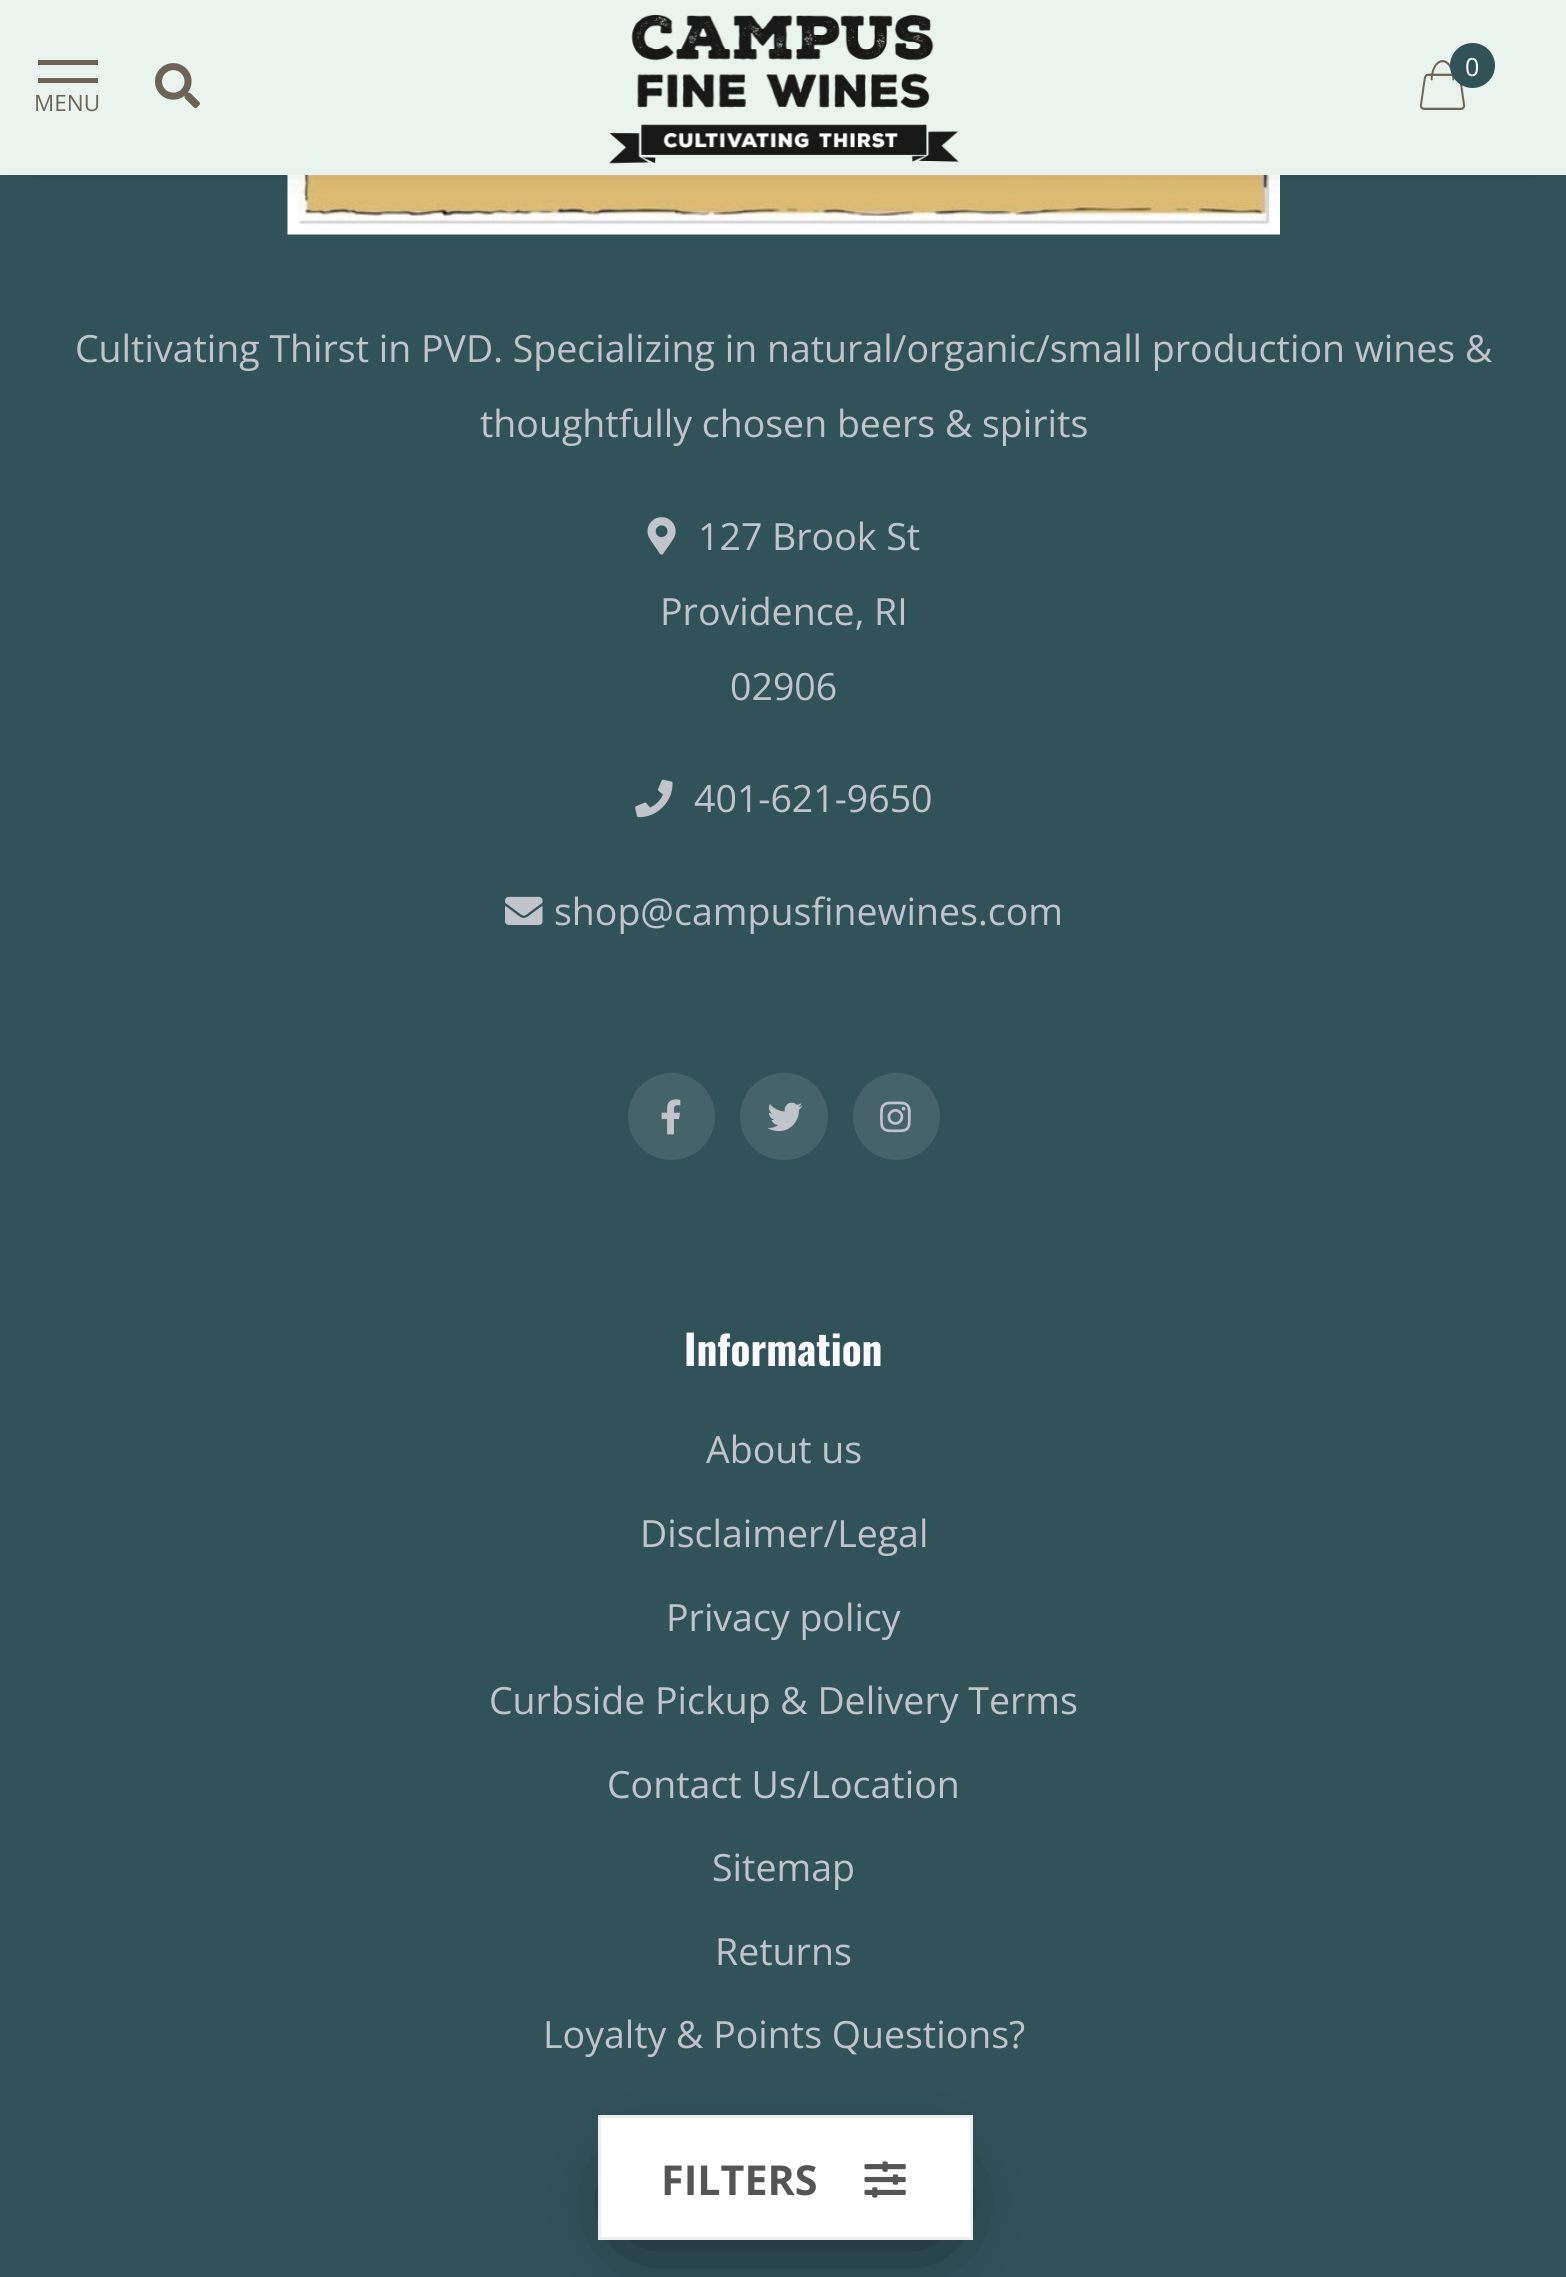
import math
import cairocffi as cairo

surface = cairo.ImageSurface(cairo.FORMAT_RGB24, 1566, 2277)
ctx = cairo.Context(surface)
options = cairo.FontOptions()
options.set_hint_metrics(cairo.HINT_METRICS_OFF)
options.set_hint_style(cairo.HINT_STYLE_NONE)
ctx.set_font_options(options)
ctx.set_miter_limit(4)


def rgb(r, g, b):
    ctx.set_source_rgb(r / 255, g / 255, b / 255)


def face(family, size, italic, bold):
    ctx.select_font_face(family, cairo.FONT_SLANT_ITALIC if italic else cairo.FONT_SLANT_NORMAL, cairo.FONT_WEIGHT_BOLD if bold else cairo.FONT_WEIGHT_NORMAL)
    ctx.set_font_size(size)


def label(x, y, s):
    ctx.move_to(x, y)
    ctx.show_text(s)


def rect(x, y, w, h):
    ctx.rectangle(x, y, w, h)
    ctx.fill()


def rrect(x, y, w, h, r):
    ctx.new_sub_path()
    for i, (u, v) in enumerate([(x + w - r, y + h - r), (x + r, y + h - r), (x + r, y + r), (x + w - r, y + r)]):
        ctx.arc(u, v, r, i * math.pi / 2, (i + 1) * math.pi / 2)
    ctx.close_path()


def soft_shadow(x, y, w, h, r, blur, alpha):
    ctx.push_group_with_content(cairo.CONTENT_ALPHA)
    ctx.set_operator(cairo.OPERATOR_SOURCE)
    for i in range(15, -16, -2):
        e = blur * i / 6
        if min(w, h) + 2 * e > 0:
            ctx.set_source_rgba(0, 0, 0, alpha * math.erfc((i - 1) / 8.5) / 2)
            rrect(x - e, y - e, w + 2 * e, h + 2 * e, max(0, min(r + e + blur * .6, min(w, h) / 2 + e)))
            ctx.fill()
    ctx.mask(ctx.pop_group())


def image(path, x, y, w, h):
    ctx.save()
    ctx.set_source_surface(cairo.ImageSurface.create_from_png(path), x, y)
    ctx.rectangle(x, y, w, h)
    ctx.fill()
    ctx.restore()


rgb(49, 82, 89)
ctx.paint()
image('image3.png', 287, 175, 993, 60)
rgb(0, 0, 0)
soft_shadow(33, 33, 1502, 110, 0, 20, 0.8)
rgb(234, 243, 238)
rect(0, 0, 1566, 175)
image('image0.png', 609, 14, 350, 150)
image('image1.png', 1419, 60, 47, 50)
rgb(49, 82, 89)
ctx.arc(1472.5, 65.5, 22.5, 0, 2 * math.pi)
ctx.fill()
face('Open Sans', 25, 0, 0)
rgb(255, 255, 255)
label(1465, 76, '0')
rgb(108, 101, 87)
rect(38, 60, 60, 5)
rect(38, 78, 60, 5)
face('Open Sans', 22.5, 0, 0)
label(34, 111, 'MENU')
image('image2.png', 155, 63, 45, 46)
face('Open Sans', 37.5, 0, 0)
rgb(193, 196, 202)
label(75, 362, 'Cultivating Thirst in PVD. Specializing in natural/organic/small production wines &')
label(480, 437, 'thoughtfully chosen beers & spirits')
image('image4.png', 647, 517, 29, 38)
label(698, 550, '127 Brook St')
label(660, 625, 'Providence, RI')
label(730, 700, '02906')
image('image5.png', 635, 779, 38, 39)
label(694, 812, '401-621-9650')
image('image6.png', 505, 896, 38, 29)
label(554, 925, 'shop@campusfinewines.com')
rgb(69, 99, 105)
ctx.new_path()
ctx.arc(671.5, 1116.5, 43.5, 0, 2 * math.pi)
ctx.fill()
image('image7.png', 661, 1099, 20, 36)
rrect(740, 1073, 88, 87, 43.5)
ctx.fill()
image('image8.png', 767, 1102, 36, 30)
ctx.arc(896.5, 1116.5, 43.5, 0, 2 * math.pi)
ctx.fill()
image('image9.png', 880, 1101, 31, 32)
face('Oswald', 41.25, 0, 1)
rgb(249, 249, 249)
label(684, 1366, 'Information')
face('Open Sans', 37.5, 0, 0)
rgb(193, 196, 202)
label(706, 1463, 'About us')
label(640, 1547, 'Disclaimer/Legal')
label(666, 1631, 'Privacy policy')
label(489, 1714, 'Curbside Pickup & Delivery Terms')
label(607, 1798, 'Contact Us/Location')
label(712, 1881, 'Sitemap')
label(715, 1965, 'Returns')
label(543, 2048, 'Loyalty & Points Questions?')
rgb(0, 0, 0)
soft_shadow(653, 2195, 265, 15, 0, 50, 1)
rgb(255, 255, 255)
ctx.rectangle(599.5, 2116.5, 372, 122)
ctx.fill_preserve()
rgb(238, 238, 238)
ctx.set_line_width(3)
ctx.stroke()
face('Open Sans', 41.25, 0, 1)
rgb(85, 85, 85)
label(661, 2195, 'FILTERS')
image('image10.png', 864, 2161, 42, 37)
surface.write_to_png('render.png')
